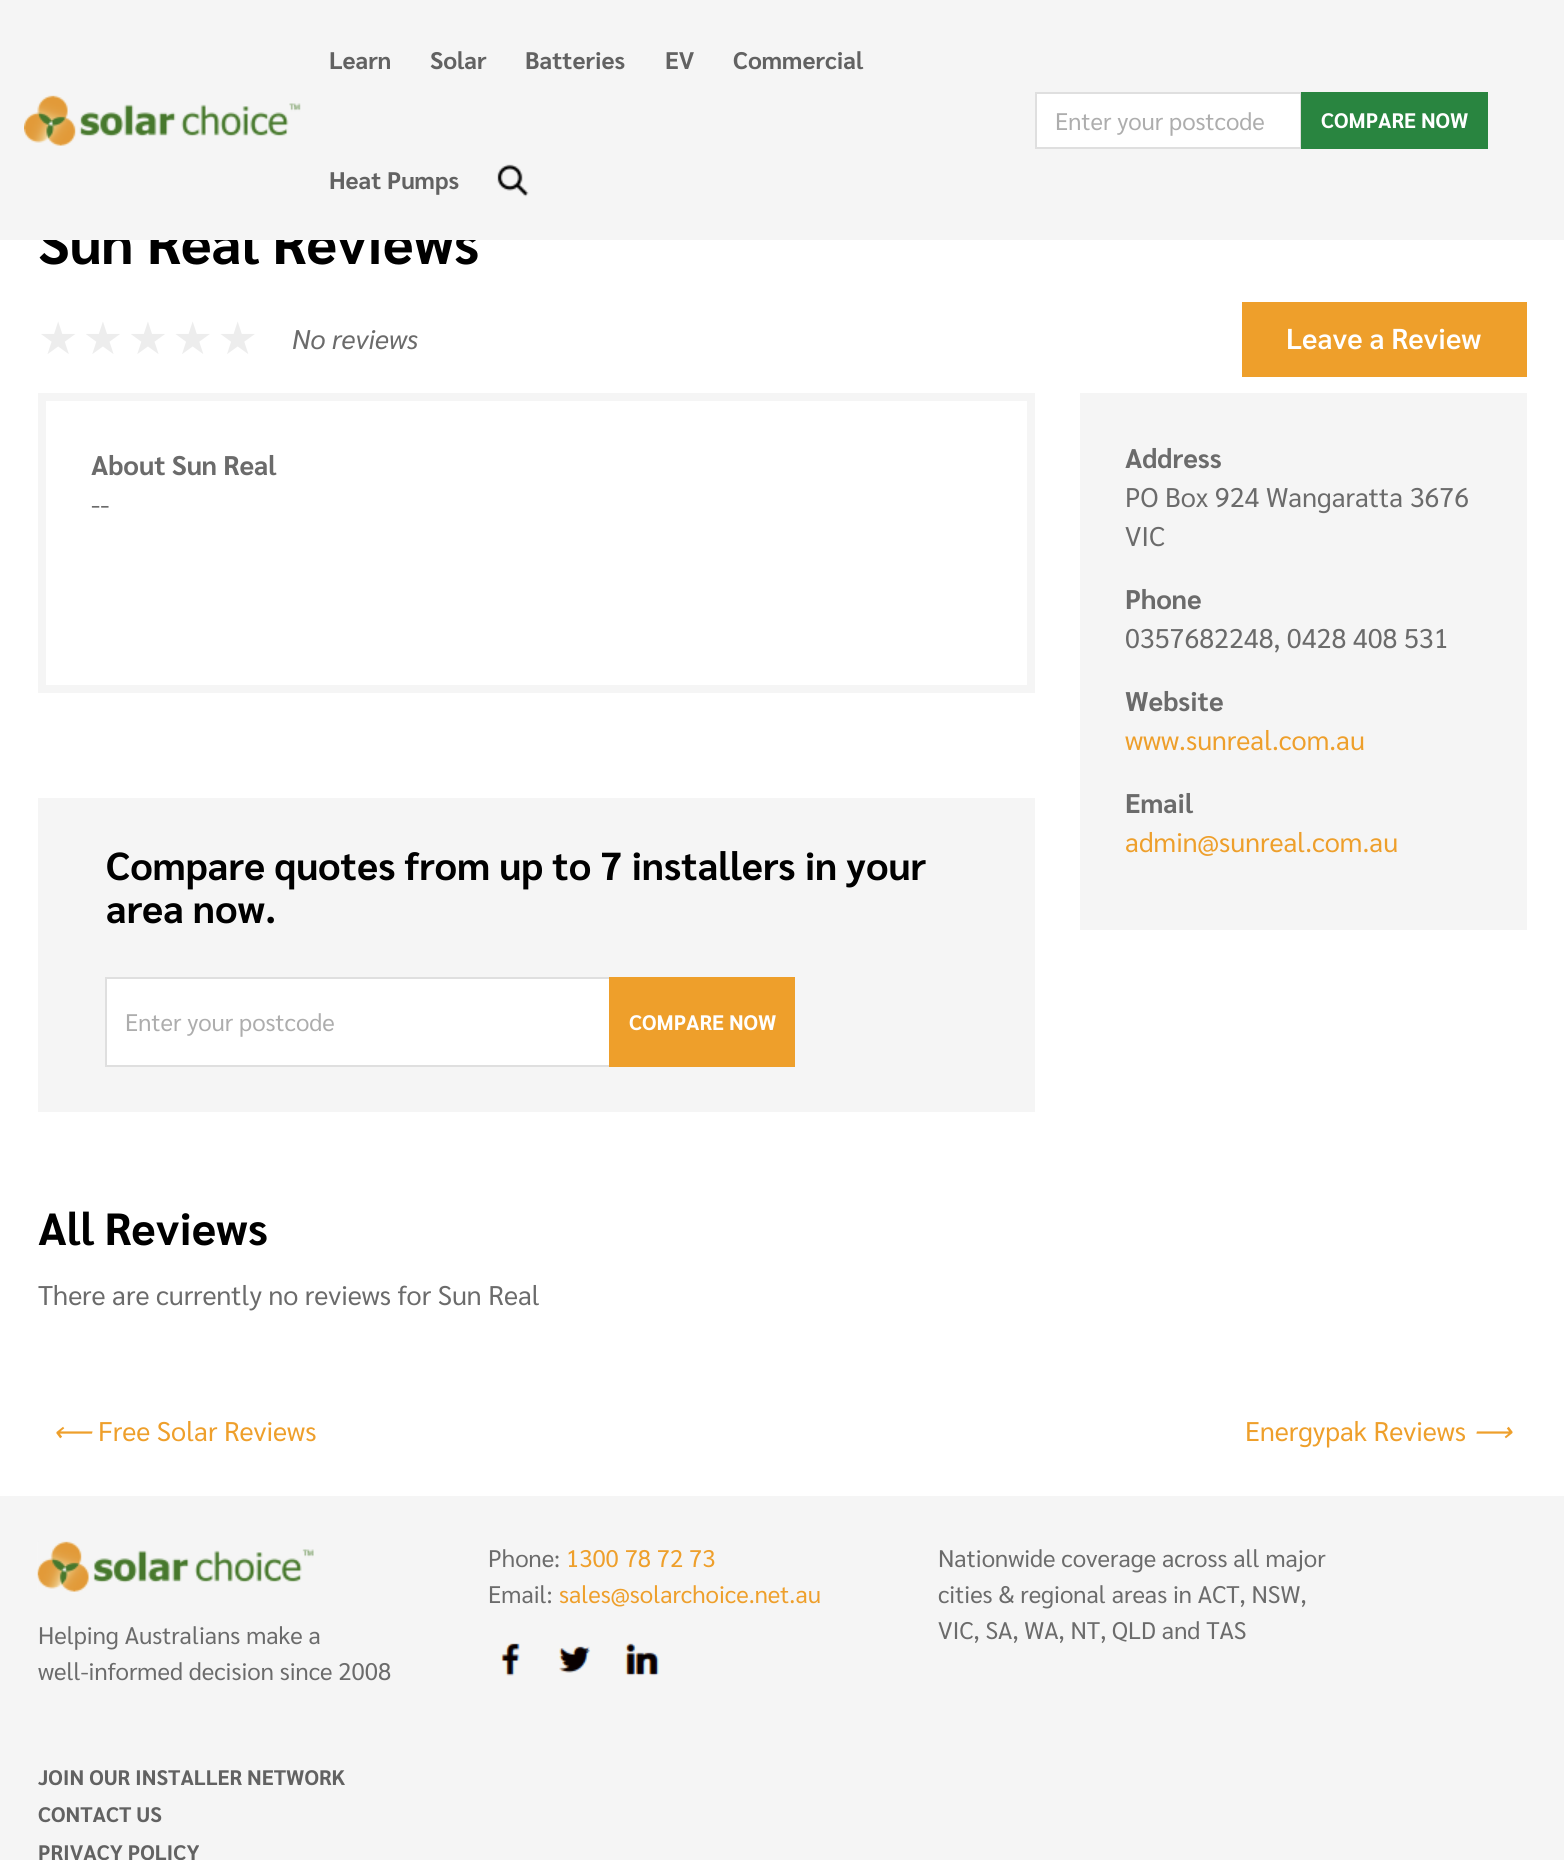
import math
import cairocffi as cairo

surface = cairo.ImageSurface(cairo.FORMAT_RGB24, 1564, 1860)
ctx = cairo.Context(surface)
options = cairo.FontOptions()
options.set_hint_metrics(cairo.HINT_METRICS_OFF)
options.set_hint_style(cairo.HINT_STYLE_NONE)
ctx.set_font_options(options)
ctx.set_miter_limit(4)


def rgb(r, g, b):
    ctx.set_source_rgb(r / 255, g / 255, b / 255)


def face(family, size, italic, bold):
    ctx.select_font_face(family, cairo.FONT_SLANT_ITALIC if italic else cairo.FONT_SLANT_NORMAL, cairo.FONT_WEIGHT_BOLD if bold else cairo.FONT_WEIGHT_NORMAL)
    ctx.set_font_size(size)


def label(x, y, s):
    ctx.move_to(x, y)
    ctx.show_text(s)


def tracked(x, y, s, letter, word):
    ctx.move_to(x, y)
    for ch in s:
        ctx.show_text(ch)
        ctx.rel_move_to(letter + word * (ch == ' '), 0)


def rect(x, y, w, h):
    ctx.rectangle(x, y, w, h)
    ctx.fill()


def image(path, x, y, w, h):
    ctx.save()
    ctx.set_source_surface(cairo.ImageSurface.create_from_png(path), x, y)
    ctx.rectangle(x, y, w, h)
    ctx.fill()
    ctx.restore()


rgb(255, 255, 255)
ctx.paint()
face('Sarabun', 57, 0, 1)
rgb(0, 0, 0)
label(38, 264, 'Sun Real Reviews')
rgb(245, 245, 245)
rect(0, 0, 1564, 240)
image('image0.png', 24, 95, 277, 51)
face('Sarabun', 24, 0, 1)
rgb(98, 98, 98)
label(329, 69, 'Learn')
label(430, 69, 'Solar')
label(525, 69, 'Batteries')
label(665, 69, 'EV')
label(733, 69, 'Commercial')
label(329, 189, 'Heat Pumps')
image('image1.png', 497, 164, 32, 33)
rgb(255, 255, 255)
ctx.rectangle(1036, 93, 265, 55)
ctx.fill_preserve()
rgb(223, 223, 223)
ctx.stroke()
face('Sarabun', 24, 0, 0)
rgb(173, 173, 173)
label(1055, 130, 'Enter your postcode')
rgb(41, 133, 64)
rect(1301, 92, 187, 57)
face('Sarabun', 21, 0, 1)
rgb(255, 255, 255)
label(1321, 128, 'COMPARE NOW')
face('DejaVu Sans', 45, 0, 0)
gradient = cairo.LinearGradient(38, 338, 262, 338)
gradient.add_color_stop_rgba(0, 1, 0.8, 0, 1)
gradient.add_color_stop_rgba(0, 0.929, 0.929, 0.929, 1)
ctx.set_source(gradient)
tracked(38, 354, '★★★★★', 4.5, 0)
face('Sarabun', 27, 1, 0)
rgb(107, 107, 107)
label(292, 349, 'No reviews')
rgb(238, 159, 43)
rect(1242, 302, 285, 75)
face('Sarabun SemiBold', 28.75, 0, 0)
rgb(255, 255, 255)
label(1286, 349, 'Leave a Review')
ctx.rectangle(42, 397, 989, 292)
rgb(245, 245, 245)
ctx.set_line_width(8)
ctx.stroke()
face('Sarabun', 27, 0, 1)
rgb(107, 107, 107)
label(91, 475, 'About Sun Real')
face('Sarabun', 27, 0, 0)
label(91, 514, '--')
rgb(245, 245, 245)
rect(1080, 393, 447, 537)
face('Sarabun', 27, 0, 1)
rgb(107, 107, 107)
label(1125, 468, 'Address')
face('Sarabun', 27, 0, 0)
label(1125, 507, 'PO Box 924 Wangaratta 3676')
label(1125, 546, 'VIC')
face('Sarabun', 27, 0, 1)
label(1125, 609, 'Phone')
face('Sarabun', 27, 0, 0)
label(1125, 648, '0357682248, 0428 408 531')
face('Sarabun', 27, 0, 1)
label(1125, 711, 'Website')
face('Sarabun', 27, 0, 0)
rgb(238, 159, 43)
label(1125, 750, 'www.sunreal.com.au')
face('Sarabun', 27, 0, 1)
rgb(107, 107, 107)
label(1125, 813, 'Email')
face('Sarabun', 27, 0, 0)
rgb(238, 159, 43)
label(1125, 852, 'admin@sunreal.com.au')
rgb(245, 245, 245)
rect(38, 798, 997, 314)
face('Sarabun', 39, 0, 1)
rgb(0, 0, 0)
label(106, 880, 'Compare quotes from up to 7 installers in your')
label(106, 923, 'area now.')
rgb(255, 255, 255)
ctx.rectangle(106, 978, 504, 88)
ctx.fill_preserve()
rgb(223, 223, 223)
ctx.set_line_width(2)
ctx.stroke()
face('Sarabun', 24, 0, 0)
rgb(173, 173, 173)
label(125, 1031, 'Enter your postcode')
rgb(238, 159, 43)
rect(609, 977, 186, 90)
face('Sarabun', 21, 0, 1)
rgb(255, 255, 255)
label(629, 1030, 'COMPARE NOW')
face('Sarabun', 45, 0, 1)
rgb(0, 0, 0)
label(38, 1245, 'All Reviews')
face('Sarabun', 27, 0, 0)
rgb(107, 107, 107)
label(38, 1305, 'There are currently no reviews for Sun Real')
face('DejaVu Sans', 27, 1, 0)
rgb(238, 159, 43)
label(53, 1441, '⟵')
face('Sarabun', 27, 0, 0)
label(98, 1441, 'Free Solar Reviews')
label(1245, 1441, 'Energypak Reviews')
face('DejaVu Sans', 27, 1, 0)
label(1473, 1441, '⟶')
rgb(245, 245, 245)
rect(0, 1496, 1564, 364)
face('Sarabun', 24, 0, 0)
rgb(107, 107, 107)
label(488, 1567, 'Phone:')
rgb(238, 159, 43)
label(566, 1567, '1300 78 72 73')
rgb(107, 107, 107)
label(488, 1603, 'Email:')
rgb(238, 159, 43)
label(559, 1603, 'sales@solarchoice.net.au')
image('image2.png', 500, 1643, 20, 33)
image('image3.png', 559, 1646, 32, 27)
image('image4.png', 625, 1643, 34, 33)
rgb(107, 107, 107)
label(938, 1567, 'Nationwide coverage across all major')
label(938, 1603, 'cities & regional areas in ACT, NSW,')
label(938, 1639, 'VIC, SA, WA, NT, QLD and TAS')
image('image5.png', 37, 1541, 277, 51)
label(38, 1644, 'Helping Australians make a')
label(38, 1680, 'well-informed decision since 2008')
face('Sarabun', 21, 0, 1)
rgb(98, 98, 98)
label(38, 1785, 'JOIN OUR INSTALLER NETWORK')
label(38, 1822, 'CONTACT US')
label(38, 1860, 'PRIVACY POLICY')
surface.write_to_png('render.png')
